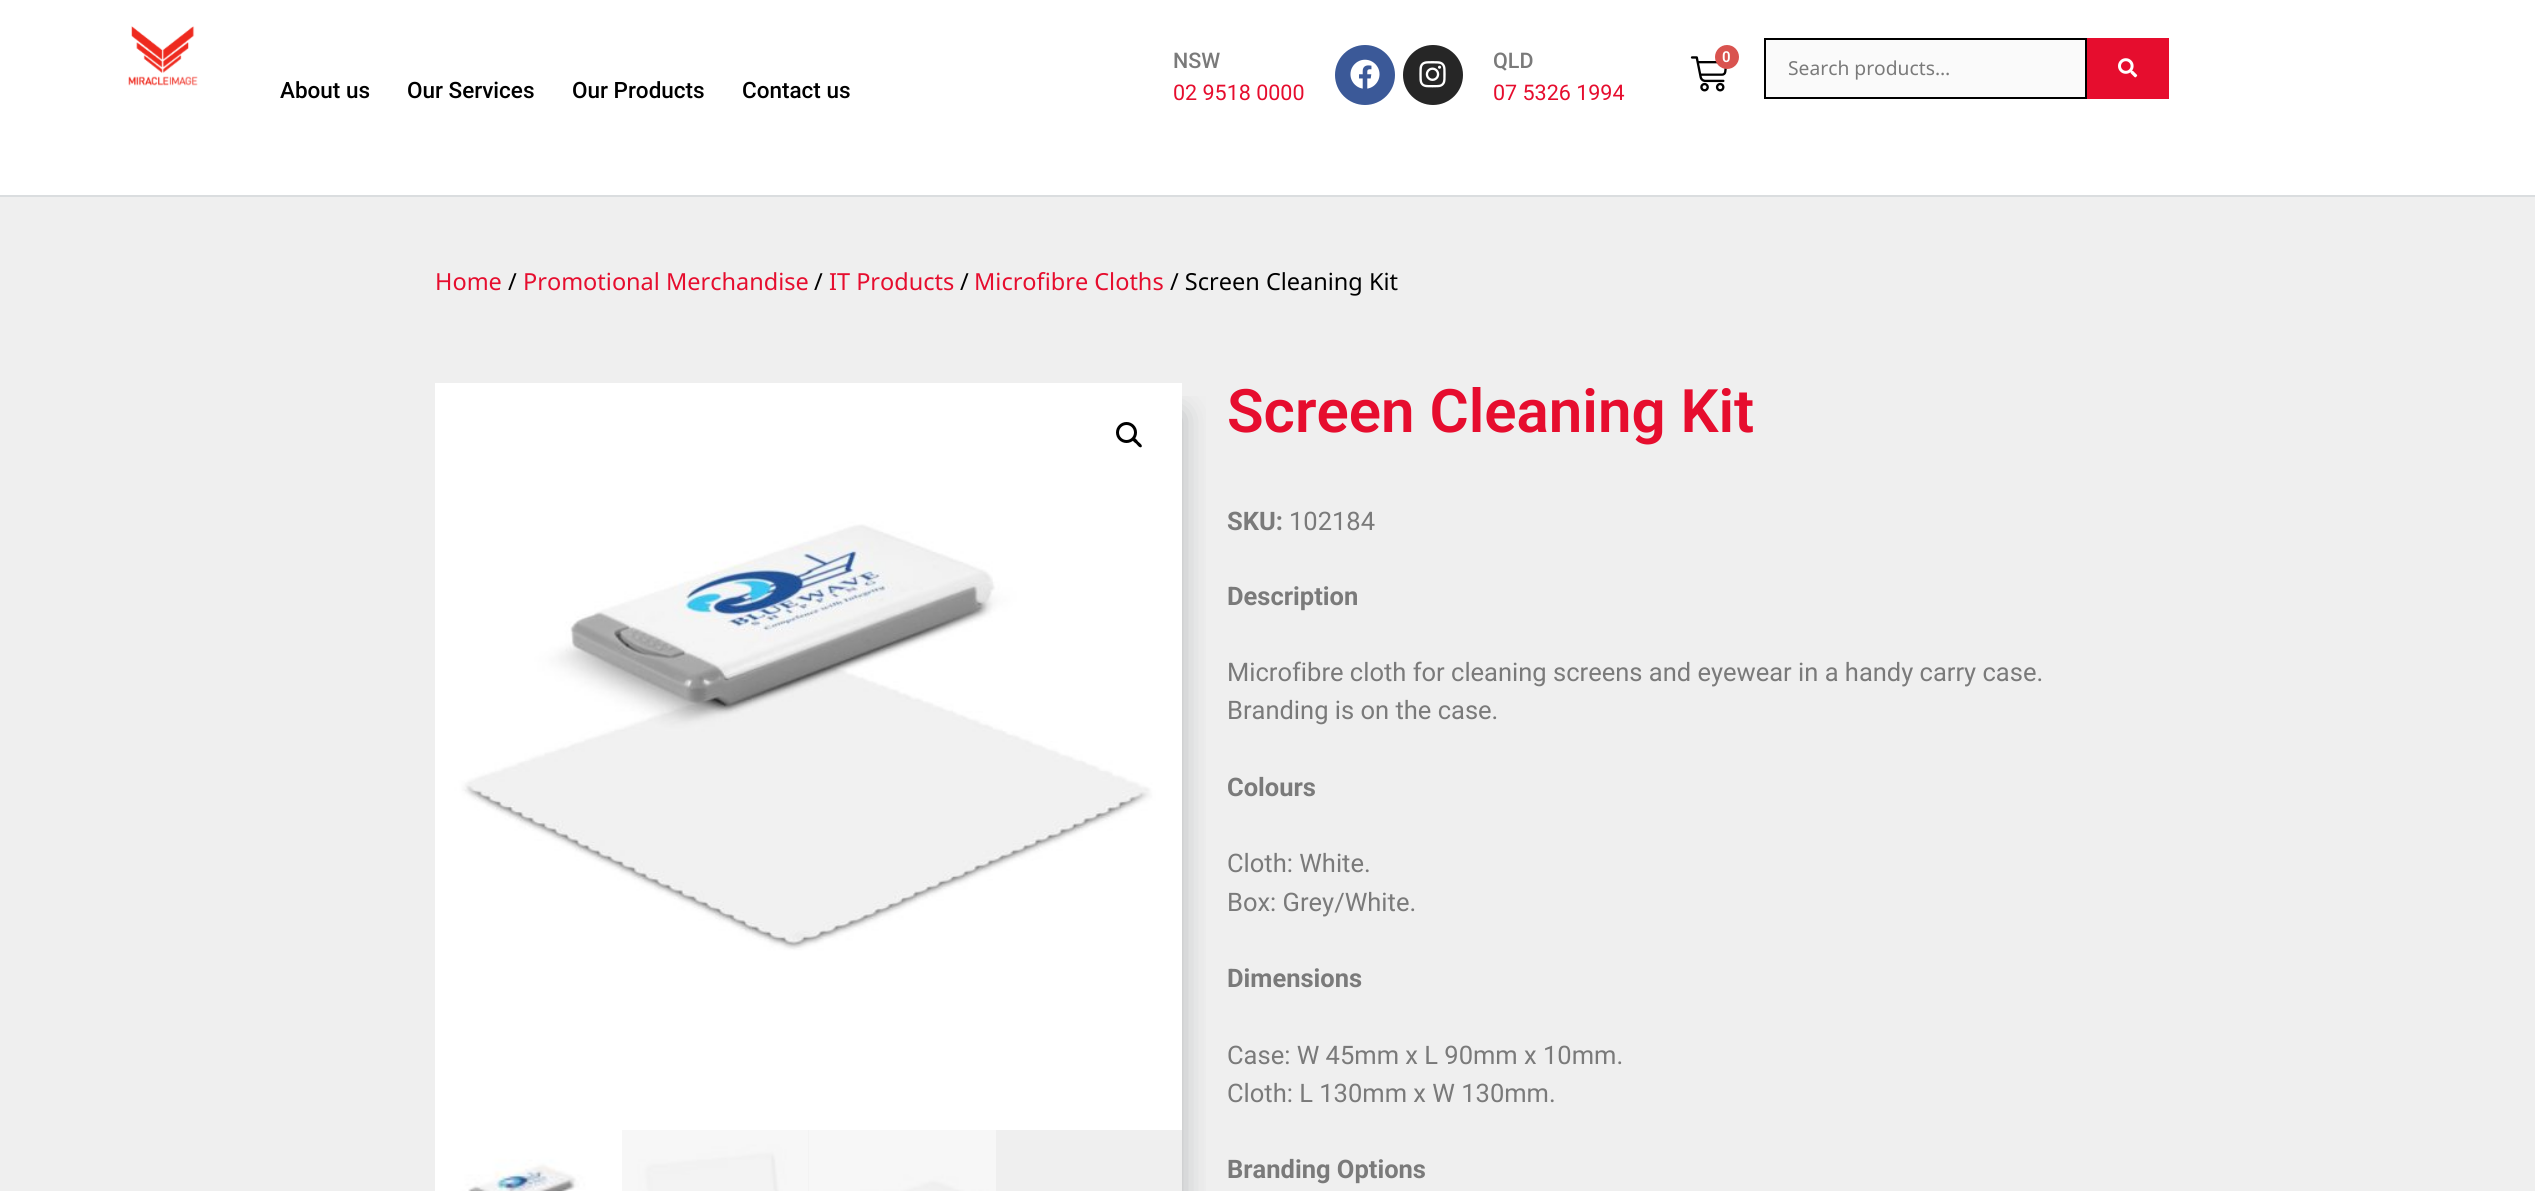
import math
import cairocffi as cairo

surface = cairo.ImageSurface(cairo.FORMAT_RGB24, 2535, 1191)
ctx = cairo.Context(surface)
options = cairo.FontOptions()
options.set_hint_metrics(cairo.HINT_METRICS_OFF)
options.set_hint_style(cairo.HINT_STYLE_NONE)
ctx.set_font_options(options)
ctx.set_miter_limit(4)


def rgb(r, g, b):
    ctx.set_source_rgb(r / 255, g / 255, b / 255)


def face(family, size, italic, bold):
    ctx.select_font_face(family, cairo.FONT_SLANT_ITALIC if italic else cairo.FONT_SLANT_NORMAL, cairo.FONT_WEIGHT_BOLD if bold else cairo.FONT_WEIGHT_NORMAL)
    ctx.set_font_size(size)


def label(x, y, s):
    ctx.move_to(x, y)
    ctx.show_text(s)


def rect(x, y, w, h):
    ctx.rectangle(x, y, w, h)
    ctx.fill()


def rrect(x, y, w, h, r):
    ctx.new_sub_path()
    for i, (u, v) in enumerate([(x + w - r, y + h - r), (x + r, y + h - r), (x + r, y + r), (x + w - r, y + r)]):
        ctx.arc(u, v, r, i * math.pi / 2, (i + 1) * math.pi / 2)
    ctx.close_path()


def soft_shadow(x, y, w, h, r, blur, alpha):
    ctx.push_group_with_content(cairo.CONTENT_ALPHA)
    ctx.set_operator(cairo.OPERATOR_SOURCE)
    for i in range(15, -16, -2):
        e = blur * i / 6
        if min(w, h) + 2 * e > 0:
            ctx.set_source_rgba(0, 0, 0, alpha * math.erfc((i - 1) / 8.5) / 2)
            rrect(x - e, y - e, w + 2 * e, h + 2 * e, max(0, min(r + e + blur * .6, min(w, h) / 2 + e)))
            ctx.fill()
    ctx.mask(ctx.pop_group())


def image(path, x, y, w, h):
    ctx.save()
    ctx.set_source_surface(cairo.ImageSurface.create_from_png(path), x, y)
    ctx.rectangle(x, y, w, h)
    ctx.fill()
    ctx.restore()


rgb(239, 239, 239)
ctx.paint()
rgb(255, 255, 255)
rect(0, 0, 2535, 195)
rgb(218, 221, 223)
rect(0, 195, 2535, 2)
image('image0.png', 128, 26, 70, 60)
face('Roboto Medium', 22.5, 0, 0)
rgb(0, 0, 0)
label(280, 98, 'About us')
label(407, 98, 'Our Services')
label(572, 98, 'Our Products')
label(742, 98, 'Contact us')
face('Roboto Medium', 21.5, 0, 0)
rgb(122, 122, 122)
label(1173, 68, 'NSW')
face('Roboto', 21.5, 0, 0)
rgb(230, 13, 46)
label(1173, 100, '02 9518 0000')
rgb(59, 89, 152)
ctx.new_path()
ctx.arc(1365, 75, 30, 0, 2 * math.pi)
ctx.fill()
image('image1.png', 1350, 59, 30, 30)
rgb(38, 38, 38)
ctx.arc(1433, 75, 30, 0, 2 * math.pi)
ctx.fill()
image('image2.png', 1419, 61, 27, 27)
face('Roboto Medium', 21.5, 0, 0)
rgb(122, 122, 122)
label(1493, 68, 'QLD')
face('Roboto', 21.5, 0, 0)
rgb(230, 13, 46)
label(1493, 100, '07 5326 1994')
image('image3.png', 1690, 56, 37, 36)
rgb(217, 83, 79)
ctx.arc(1727, 57, 12, 0, 2 * math.pi)
ctx.fill()
face('Roboto SemiBold', 15, 0, 0)
rgb(255, 255, 255)
label(1722, 62, '0')
rgb(250, 250, 250)
ctx.rectangle(1765, 39, 321, 59)
ctx.fill_preserve()
rgb(0, 0, 0)
ctx.stroke()
face('Noto Sans', 19.25, 0, 0)
rgb(122, 122, 122)
label(1788, 75, 'Search products…')
rgb(230, 13, 46)
rect(2087, 38, 82, 61)
image('image4.png', 2118, 58, 20, 20)
face('Noto Sans', 23.5, 0, 0)
label(435, 290, 'Home')
rgb(0, 0, 0)
label(508, 290, '/')
rgb(230, 13, 46)
label(523, 290, 'Promotional Merchandise')
rgb(0, 0, 0)
label(814, 290, '/')
rgb(230, 13, 46)
label(829, 290, 'IT Products')
rgb(0, 0, 0)
label(960, 290, '/')
rgb(230, 13, 46)
label(974, 290, 'Microfibre Cloths')
rgb(0, 0, 0)
label(1170, 290, '/ Screen Cleaning Kit')
ctx.save()
ctx.rectangle(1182, 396, 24, 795)
ctx.clip()
rgb(84, 89, 95)
soft_shadow(467, 414, 714, 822, 0, 15, 0.4)
ctx.restore()
image('image5.png', 435, 383, 747, 747)
ctx.arc(1126.5, 432.5, 9, 0, 2 * math.pi)
ctx.set_line_width(3)
ctx.stroke()
ctx.new_path()
ctx.move_to(1133, 438.5)
ctx.curve_to(1134.5, 436.5, 1137.5, 440.5, 1138, 441.5)
ctx.curve_to(1139, 442.5, 1143, 445, 1141.5, 447)
ctx.curve_to(1139.5, 448.5, 1137, 444.5, 1136, 443.5)
ctx.curve_to(1135, 443, 1131, 440, 1133, 438.5)
ctx.close_path()
ctx.fill()
image('image6.png', 435, 1130, 188, 61)
image('image7.png', 623, 1130, 186, 61)
image('image8.png', 809, 1130, 187, 61)
face('Roboto SemiBold', 60, 0, 0)
rgb(230, 13, 46)
label(1227, 432, 'Screen Cleaning Kit')
face('Roboto', 25.5, 0, 1)
rgb(122, 122, 122)
label(1227, 530, 'SKU:')
face('Roboto', 25.5, 0, 0)
label(1289, 530, '102184')
face('Roboto', 25.5, 0, 1)
label(1227, 605, 'Description')
face('Roboto', 25.5, 0, 0)
label(1227, 681, 'Microfibre cloth for cleaning screens and eyewear in a handy carry case.')
label(1227, 719, 'Branding is on the case.')
face('Roboto', 25.5, 0, 1)
label(1227, 796, 'Colours')
face('Roboto', 25.5, 0, 0)
label(1227, 872, 'Cloth: White.')
label(1227, 911, 'Box: Grey/White.')
face('Roboto', 25.5, 0, 1)
label(1227, 987, 'Dimensions')
face('Roboto', 25.5, 0, 0)
label(1227, 1064, 'Case: W 45mm x L 90mm x 10mm.')
label(1227, 1102, 'Cloth: L 130mm x W 130mm.')
face('Roboto', 25.5, 0, 1)
label(1227, 1178, 'Branding Options')
surface.write_to_png('render.png')
